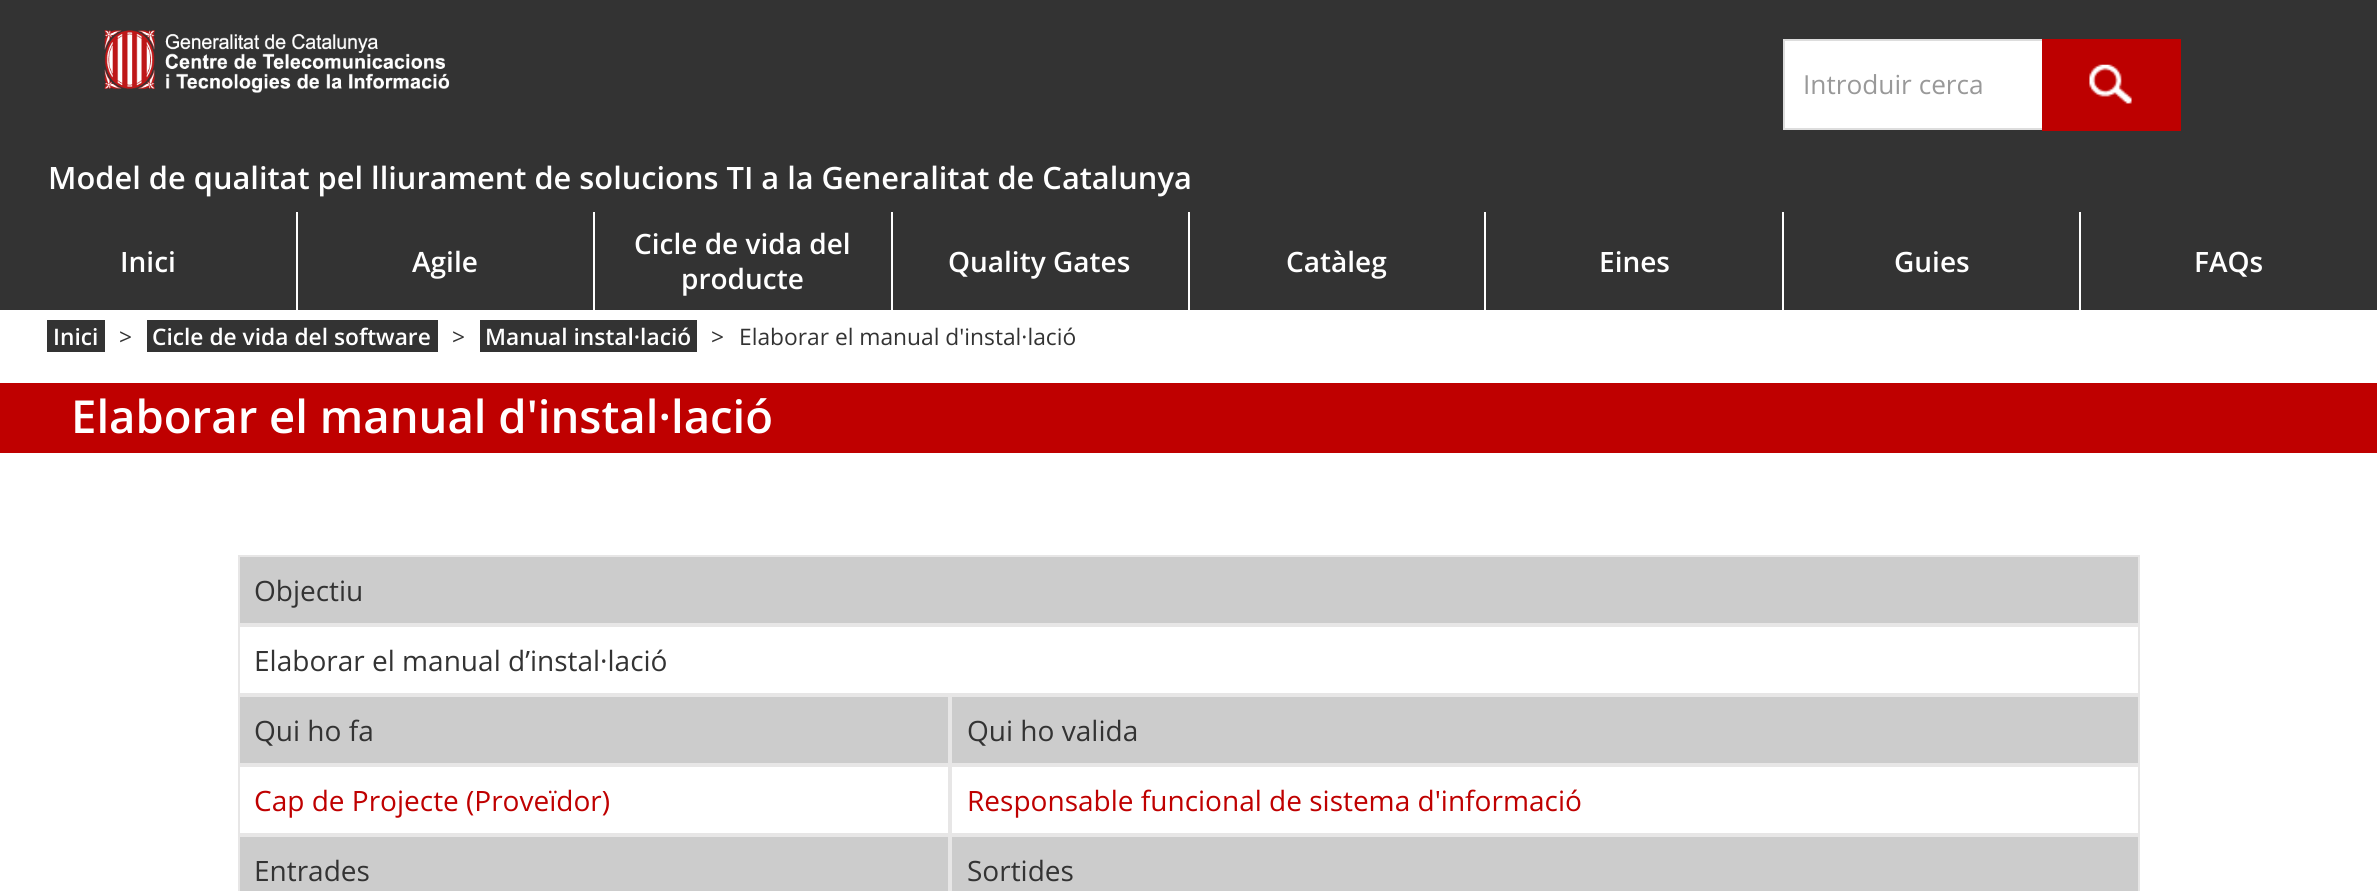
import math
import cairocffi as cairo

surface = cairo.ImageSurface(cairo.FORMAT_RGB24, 2377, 891)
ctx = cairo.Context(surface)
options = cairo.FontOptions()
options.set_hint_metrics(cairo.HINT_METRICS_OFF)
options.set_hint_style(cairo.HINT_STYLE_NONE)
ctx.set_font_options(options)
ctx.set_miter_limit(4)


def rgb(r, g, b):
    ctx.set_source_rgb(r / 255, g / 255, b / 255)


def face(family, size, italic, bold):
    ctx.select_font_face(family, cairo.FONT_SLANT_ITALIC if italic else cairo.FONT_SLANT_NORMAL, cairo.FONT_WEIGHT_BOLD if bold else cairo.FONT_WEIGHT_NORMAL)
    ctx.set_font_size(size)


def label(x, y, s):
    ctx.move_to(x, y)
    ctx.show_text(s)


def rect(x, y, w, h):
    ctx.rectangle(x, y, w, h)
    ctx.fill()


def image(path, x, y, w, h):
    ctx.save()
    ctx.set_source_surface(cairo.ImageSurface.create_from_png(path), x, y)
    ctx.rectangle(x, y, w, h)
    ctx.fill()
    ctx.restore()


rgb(255, 255, 255)
ctx.paint()
rgb(51, 51, 51)
rect(0, 0, 2377, 310)
image('image0.png', 104, 30, 346, 63)
rgb(255, 255, 255)
rect(1785, 41, 257, 87)
ctx.rectangle(1784, 40, 396, 89)
rgb(221, 221, 221)
ctx.stroke()
face('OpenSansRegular', 26.25, 0, 0)
rgb(153, 153, 153)
label(1803, 94, 'Introduir cerca')
rgb(189, 0, 0)
rect(2042, 39, 139, 92)
image('image1.png', 2089, 64, 43, 40)
face('Open Sans SemiBold', 30.8, 0, 0)
rgb(255, 255, 255)
label(48, 189, 'Model de qualitat pel lliurament de solucions TI a la Generalitat de Catalunya')
rect(296, 212, 2, 100)
face('Open Sans SemiBold', 28, 0, 0)
label(120, 272, 'Inici')
rect(593, 212, 2, 100)
label(412, 272, 'Agile')
rect(891, 212, 2, 100)
label(634, 254, 'Cicle de vida del')
label(681, 289, 'producte')
rect(1188, 212, 2, 100)
label(948, 272, 'Quality Gates')
rect(1484, 212, 2, 100)
label(1286, 272, 'Catàleg')
rect(1782, 212, 2, 100)
label(1599, 272, 'Eines')
rect(2079, 212, 2, 100)
label(1894, 272, 'Guies')
label(2194, 272, 'FAQs')
rgb(51, 51, 51)
rect(47, 320, 58, 32)
face('Open Sans SemiBold', 22.75, 0, 0)
rgb(255, 255, 255)
label(53, 345, 'Inici')
face('OpenSansRegular', 22.75, 0, 0)
rgb(51, 51, 51)
label(119, 345, '>')
rect(147, 320, 291, 32)
face('Open Sans SemiBold', 22.75, 0, 0)
rgb(255, 255, 255)
label(152, 345, 'Cicle de vida del software')
face('OpenSansRegular', 22.75, 0, 0)
rgb(51, 51, 51)
label(452, 345, '>')
rect(480, 320, 217, 32)
face('Open Sans SemiBold', 22.75, 0, 0)
rgb(255, 255, 255)
label(485, 345, 'Manual instal·lació')
face('OpenSansRegular', 22.75, 0, 0)
rgb(51, 51, 51)
label(711, 345, '>')
label(739, 345, 'Elaborar el manual d\'instal·lació')
rgb(191, 0, 0)
rect(0, 383, 2377, 70)
face('Open Sans SemiBold', 45.5, 0, 0)
rgb(255, 255, 255)
label(71, 433, 'Elaborar el manual d\'instal·lació')
rgb(204, 204, 204)
ctx.rectangle(239, 556, 1900, 68)
ctx.fill_preserve()
rgb(231, 230, 230)
ctx.stroke()
face('OpenSansRegular', 28, 0, 0)
rgb(51, 51, 51)
label(254, 601, 'Objectiu')
ctx.rectangle(239, 626, 1900, 68)
rgb(231, 230, 230)
ctx.stroke()
rgb(51, 51, 51)
label(254, 671, 'Elaborar el manual d’instal·lació')
rgb(204, 204, 204)
ctx.rectangle(239, 696, 710, 68)
ctx.fill_preserve()
rgb(231, 230, 230)
ctx.stroke()
rgb(51, 51, 51)
label(254, 741, 'Qui ho fa')
rgb(204, 204, 204)
ctx.rectangle(951, 696, 1188, 68)
ctx.fill_preserve()
rgb(231, 230, 230)
ctx.stroke()
rgb(51, 51, 51)
label(967, 741, 'Qui ho valida')
ctx.rectangle(239, 766, 710, 68)
rgb(231, 230, 230)
ctx.stroke()
rgb(191, 0, 0)
label(254, 811, 'Cap de Projecte (Proveïdor)')
ctx.rectangle(951, 766, 1188, 68)
rgb(231, 230, 230)
ctx.stroke()
rgb(191, 0, 0)
label(967, 811, 'Responsable funcional de sistema d\'informació')
rgb(204, 204, 204)
ctx.rectangle(239, 836, 710, 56)
ctx.fill_preserve()
rgb(231, 230, 230)
ctx.stroke()
rgb(51, 51, 51)
label(254, 881, 'Entrades')
rgb(204, 204, 204)
ctx.rectangle(951, 836, 1188, 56)
ctx.fill_preserve()
rgb(231, 230, 230)
ctx.stroke()
rgb(51, 51, 51)
label(967, 881, 'Sortides')
surface.write_to_png('render.png')
